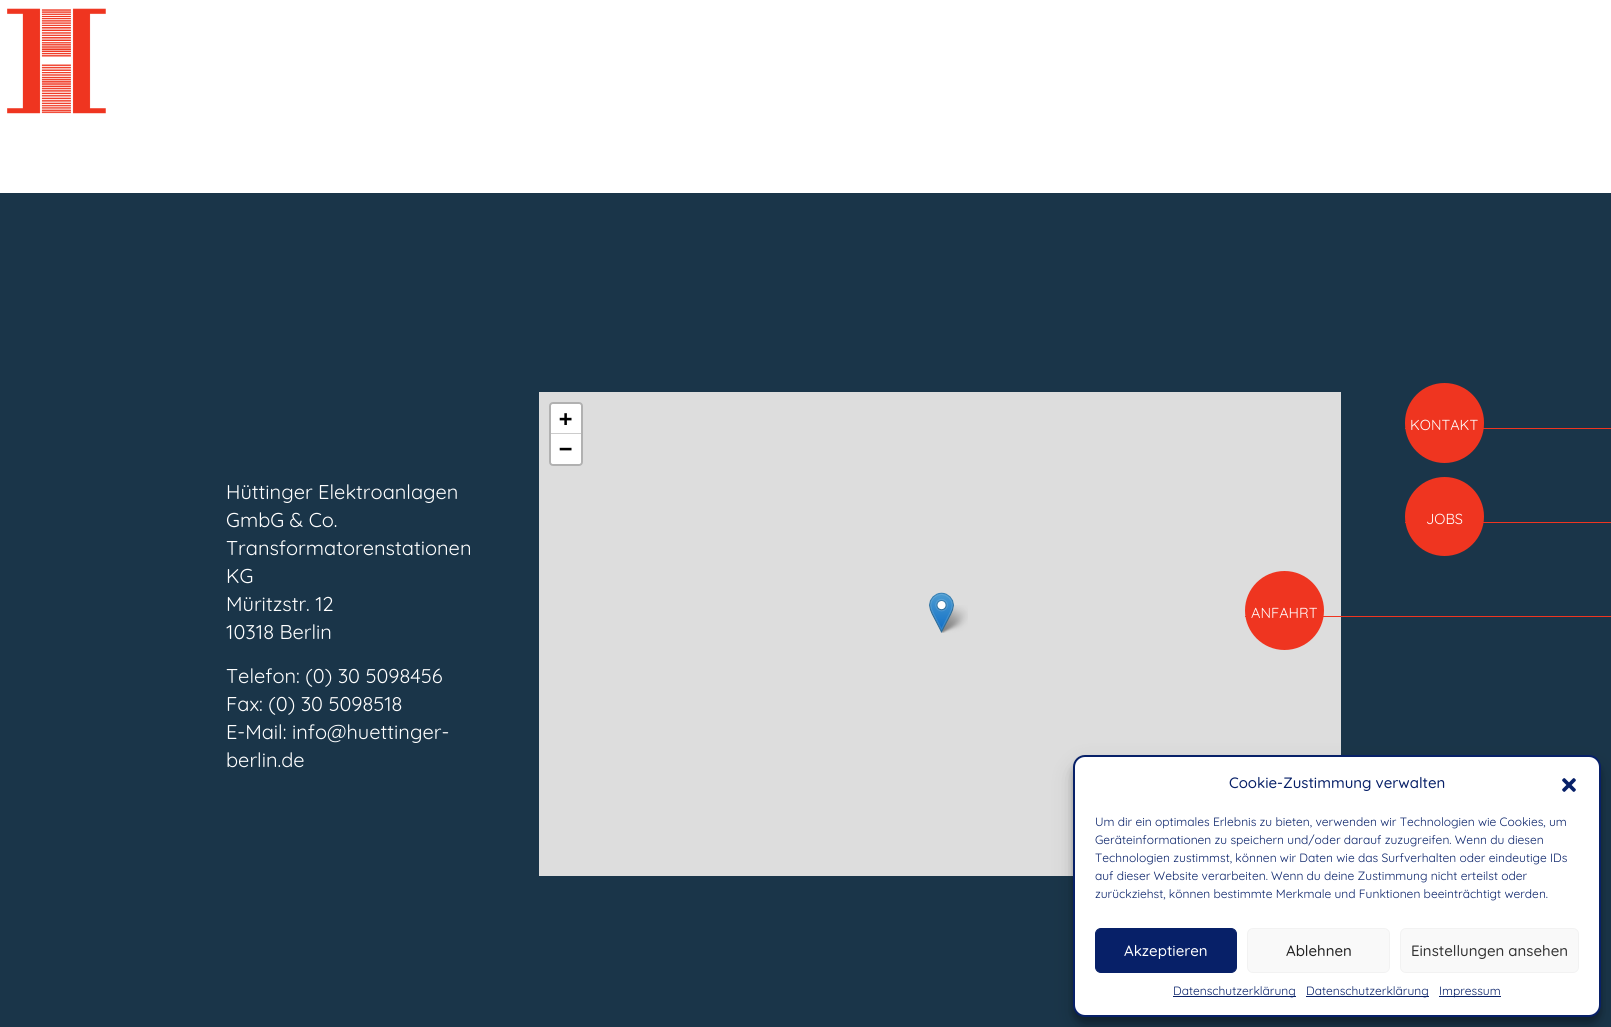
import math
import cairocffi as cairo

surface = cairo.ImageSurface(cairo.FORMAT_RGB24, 1611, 1027)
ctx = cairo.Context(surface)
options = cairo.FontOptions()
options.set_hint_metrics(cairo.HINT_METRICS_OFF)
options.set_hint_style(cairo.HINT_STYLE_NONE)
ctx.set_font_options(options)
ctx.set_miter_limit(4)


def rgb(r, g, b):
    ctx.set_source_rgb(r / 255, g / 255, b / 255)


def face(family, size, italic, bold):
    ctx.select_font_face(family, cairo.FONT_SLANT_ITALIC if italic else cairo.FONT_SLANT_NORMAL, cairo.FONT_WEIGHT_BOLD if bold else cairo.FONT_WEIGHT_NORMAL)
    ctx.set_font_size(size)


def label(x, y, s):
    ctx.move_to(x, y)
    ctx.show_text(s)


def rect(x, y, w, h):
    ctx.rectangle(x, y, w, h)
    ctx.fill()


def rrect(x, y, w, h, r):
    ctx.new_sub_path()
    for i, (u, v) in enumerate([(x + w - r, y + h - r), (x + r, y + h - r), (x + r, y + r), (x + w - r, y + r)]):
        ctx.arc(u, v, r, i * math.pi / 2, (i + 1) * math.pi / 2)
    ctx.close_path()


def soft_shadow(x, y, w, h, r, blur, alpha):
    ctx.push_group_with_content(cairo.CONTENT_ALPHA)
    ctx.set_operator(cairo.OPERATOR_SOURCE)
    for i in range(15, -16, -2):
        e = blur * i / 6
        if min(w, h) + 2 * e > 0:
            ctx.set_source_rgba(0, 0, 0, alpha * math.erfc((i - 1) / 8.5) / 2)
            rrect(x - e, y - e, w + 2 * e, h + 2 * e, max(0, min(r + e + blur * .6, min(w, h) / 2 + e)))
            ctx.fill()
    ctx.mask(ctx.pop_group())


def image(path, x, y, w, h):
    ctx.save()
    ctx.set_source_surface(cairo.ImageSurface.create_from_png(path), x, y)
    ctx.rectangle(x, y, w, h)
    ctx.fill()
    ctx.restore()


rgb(255, 255, 255)
ctx.paint()
image('image0.png', 7, 8, 99, 106)
rgb(26, 53, 73)
rect(0, 193, 1611, 834)
rgb(221, 221, 221)
rect(539, 392, 802, 484)
rrect(550, 403, 32, 62, 3)
rgb(177, 177, 177)
ctx.stroke()
rgb(255, 255, 255)
ctx.new_path()
ctx.move_to(553, 404)
ctx.line_to(579, 404)
ctx.curve_to(580, 404, 581, 405, 581, 406)
ctx.line_to(581, 434)
ctx.line_to(551, 434)
ctx.line_to(551, 406)
ctx.curve_to(551, 405, 552, 404, 553, 404)
ctx.close_path()
ctx.fill()
rgb(204, 204, 204)
rect(551, 433, 30, 1)
face('DejaVu Sans Mono', 22, 0, 1)
rgb(0, 0, 0)
label(559, 426, '+')
rgb(255, 255, 255)
ctx.new_path()
ctx.move_to(551, 434)
ctx.line_to(581, 434)
ctx.line_to(581, 462)
ctx.curve_to(581, 463, 580, 464, 579, 464)
ctx.line_to(553, 464)
ctx.curve_to(552, 464, 551, 463, 551, 462)
ctx.close_path()
ctx.fill()
rgb(0, 0, 0)
label(559, 456, '−')
image('image2.png', 939, 605, 29, 28)
image('image1.png', 929, 592, 25, 41)
face('Quicksand', 20, 0, 0)
rgb(255, 255, 255)
label(226, 499, 'Hüttinger Elektroanlagen')
label(226, 527, 'GmbG & Co.')
label(226, 555, 'Transformatorenstationen')
label(226, 583, 'KG')
label(226, 611, 'Müritzstr. 12')
label(226, 639, '10318 Berlin')
label(226, 683, 'Telefon: (0) 30 5098456')
label(226, 711, 'Fax: (0) 30 5098518')
label(226, 739, 'E-Mail: info@huettinger-')
label(226, 767, 'berlin.de')
rgb(239, 53, 32)
rect(1405, 428, 206, 1)
rrect(1405, 383, 79, 80, 39.5)
ctx.fill()
face('Quicksand', 14.5, 0, 0)
rgb(255, 255, 255)
label(1410, 430, 'KONTAKT')
rgb(239, 53, 32)
rect(1405, 522, 206, 1)
ctx.new_path()
ctx.arc(1444.5, 516.5, 39.5, 0, 2 * math.pi)
ctx.fill()
rgb(255, 255, 255)
label(1426, 524, 'JOBS')
rgb(239, 53, 32)
rect(1245, 616, 366, 1)
ctx.new_path()
ctx.arc(1284.5, 610.5, 39.5, 0, 2 * math.pi)
ctx.fill()
rgb(255, 255, 255)
label(1251, 618, 'ANFAHRT')
rgb(0, 0, 0)
soft_shadow(1073, 761, 528, 262, 12, 3, 0.23)
soft_shadow(1073, 765, 528, 262, 12, 10, 0.19)
rgb(255, 255, 255)
rrect(1074, 756, 526, 260, 11)
ctx.fill_preserve()
rgb(7, 32, 104)
ctx.stroke()
face('Quicksand Medium', 15, 0, 0)
label(1229, 788, 'Cookie-Zustimmung verwalten')
image('image3.png', 1562, 778, 14, 14)
face('Quicksand', 12, 0, 0)
label(1095, 826, 'Um dir ein optimales Erlebnis zu bieten, verwenden wir Technologien wie Cookies, um')
label(1095, 844, 'Geräteinformationen zu speichern und/oder darauf zuzugreifen. Wenn du diesen')
label(1095, 862, 'Technologien zustimmst, können wir Daten wie das Surfverhalten oder eindeutige IDs')
label(1095, 880, 'auf dieser Website verarbeiten. Wenn du deine Zustimmung nicht erteilst oder')
label(1095, 898, 'zurückziehst, können bestimmte Merkmale und Funktionen beeinträchtigt werden.')
rrect(1095.5, 928.5, 141, 44, 5.5)
ctx.fill_preserve()
ctx.set_line_width(1)
ctx.stroke()
face('Quicksand Medium', 15, 0, 0)
rgb(255, 255, 255)
label(1124, 956, 'Akzeptieren')
rgb(249, 249, 249)
rrect(1247.5, 928.5, 142, 44, 5.5)
ctx.fill_preserve()
rgb(242, 242, 242)
ctx.stroke()
rgb(34, 34, 34)
label(1286, 956, 'Ablehnen')
rgb(249, 249, 249)
rrect(1400.5, 928.5, 178, 44, 5.5)
ctx.fill_preserve()
rgb(242, 242, 242)
ctx.stroke()
rgb(51, 51, 51)
label(1411, 956, 'Einstellungen ansehen')
rgb(7, 32, 104)
rect(1173, 996, 123, 1)
face('Quicksand', 12, 0, 0)
label(1173, 995, 'Datenschutzerklärung')
rect(1306, 996, 123, 1)
label(1306, 995, 'Datenschutzerklärung')
rect(1439, 996, 62, 1)
label(1439, 995, 'Impressum')
surface.write_to_png('render.png')
